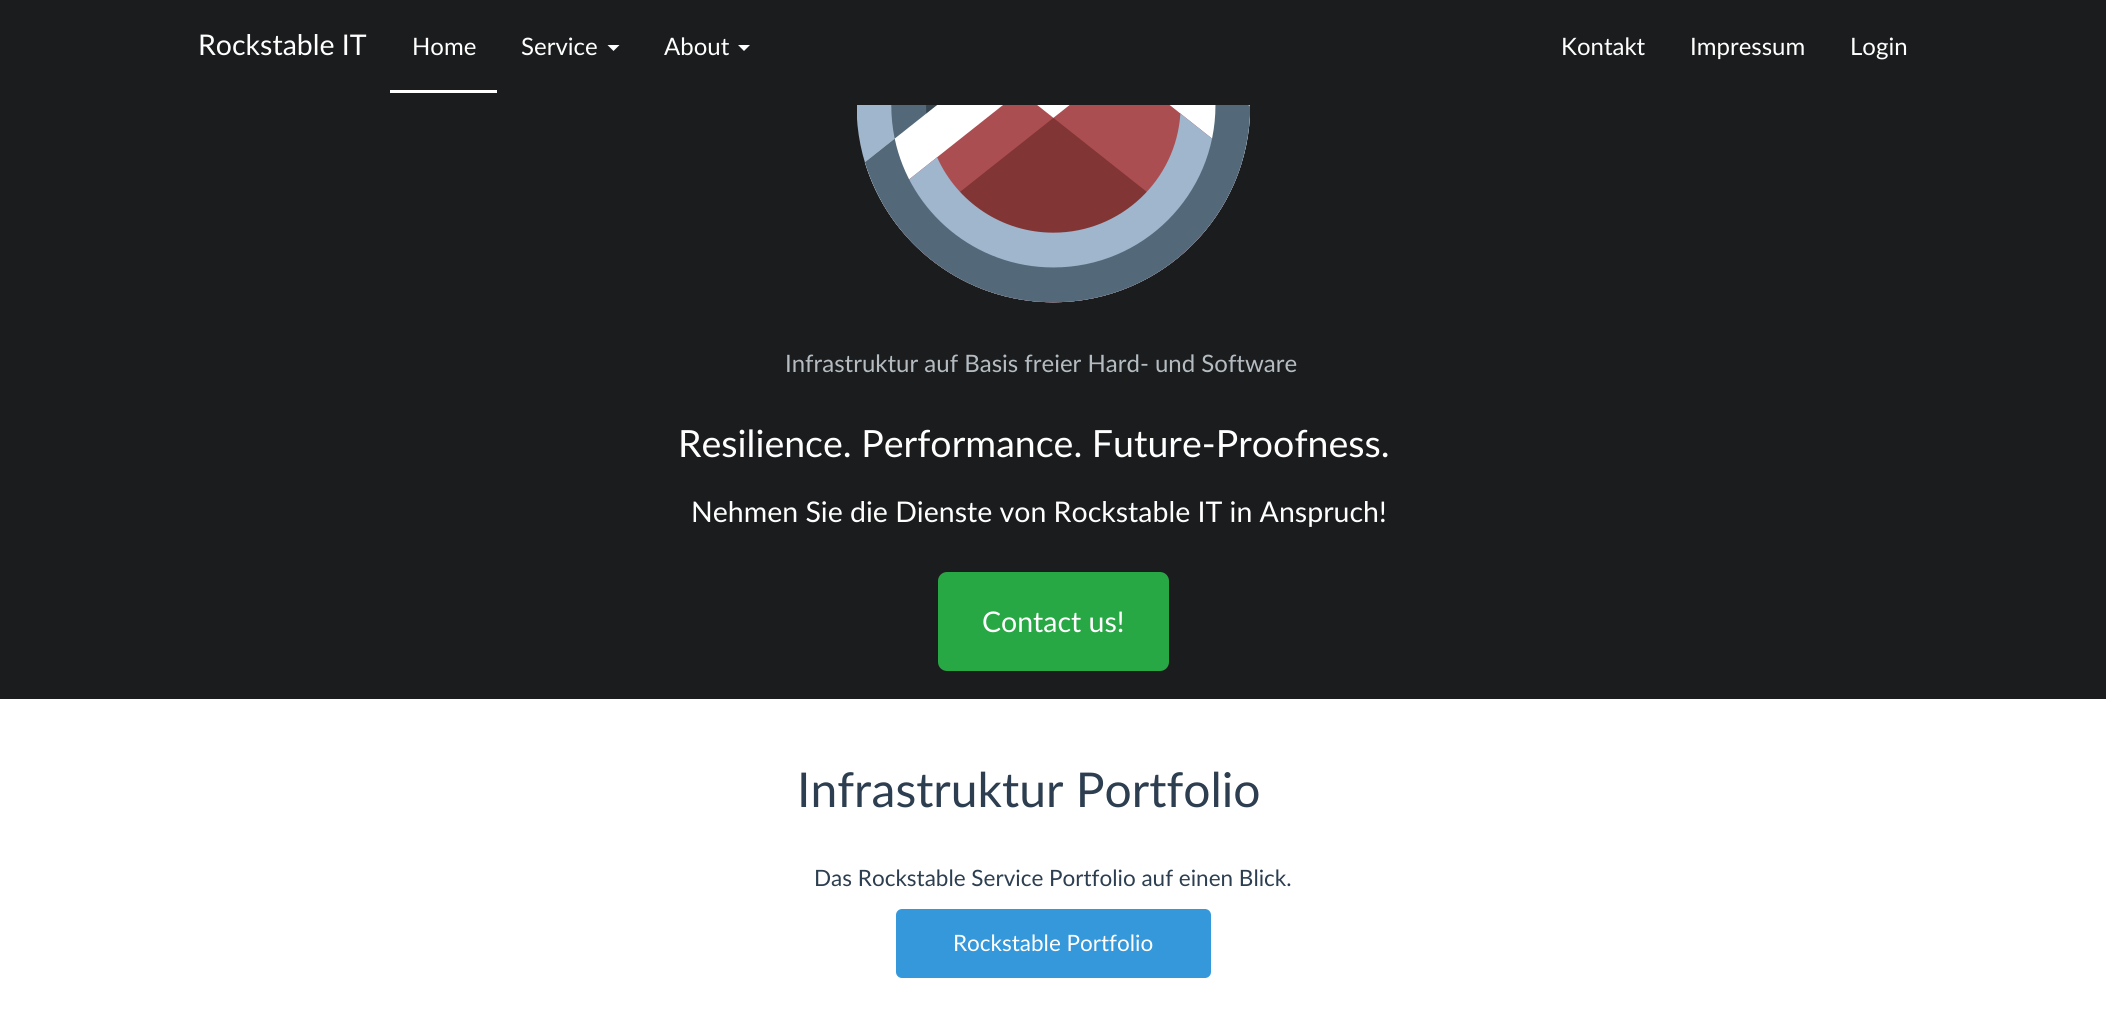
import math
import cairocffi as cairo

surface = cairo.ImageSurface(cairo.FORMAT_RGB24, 2106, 1031)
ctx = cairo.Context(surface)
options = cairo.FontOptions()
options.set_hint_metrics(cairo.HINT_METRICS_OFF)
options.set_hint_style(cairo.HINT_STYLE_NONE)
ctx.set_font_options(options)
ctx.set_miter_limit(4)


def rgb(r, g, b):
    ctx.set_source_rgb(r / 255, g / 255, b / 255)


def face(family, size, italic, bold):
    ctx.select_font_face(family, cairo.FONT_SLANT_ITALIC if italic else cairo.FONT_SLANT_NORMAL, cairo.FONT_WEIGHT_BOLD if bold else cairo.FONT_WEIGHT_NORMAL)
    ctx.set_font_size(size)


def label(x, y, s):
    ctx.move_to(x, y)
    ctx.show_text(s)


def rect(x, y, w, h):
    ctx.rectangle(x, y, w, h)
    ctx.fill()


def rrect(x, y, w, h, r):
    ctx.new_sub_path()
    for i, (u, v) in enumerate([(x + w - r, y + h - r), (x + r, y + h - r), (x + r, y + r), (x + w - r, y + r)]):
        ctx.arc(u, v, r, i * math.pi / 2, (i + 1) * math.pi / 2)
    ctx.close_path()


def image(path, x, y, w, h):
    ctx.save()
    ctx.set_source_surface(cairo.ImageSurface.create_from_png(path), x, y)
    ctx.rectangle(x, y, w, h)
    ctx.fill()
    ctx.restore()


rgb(255, 255, 255)
ctx.paint()
rgb(27, 28, 29)
rect(0, 0, 2106, 699)
face('Lato', 28.5, 0, 0)
rgb(255, 255, 255)
label(198, 55, 'Rockstable IT')
rect(390, 90, 107, 3)
face('Lato', 24, 0, 0)
label(412, 55, 'Home')
label(521, 55, 'Service')
ctx.new_path()
ctx.move_to(607.5, 45)
ctx.line_to(619.5, 45)
ctx.line_to(613.5, 51)
ctx.close_path()
ctx.fill()
label(664, 55, 'About')
ctx.new_path()
ctx.move_to(738, 45)
ctx.line_to(750, 45)
ctx.line_to(744, 51)
ctx.close_path()
ctx.fill()
label(1561, 55, 'Kontakt')
label(1690, 55, 'Impressum')
label(1850, 55, 'Login')
image('image0.png', 857, 105, 393, 198)
rgb(180, 188, 194)
label(785, 372, 'Infrastruktur auf Basis freier Hard- und Software')
face('Lato', 37.5, 0, 0)
rgb(255, 255, 255)
label(678, 457, 'Resilience. Performance. Future-Proofness.')
face('Lato', 28.5, 0, 0)
label(691, 522, 'Nehmen Sie die Dienste von Rockstable IT in Anspruch!')
rgb(40, 167, 69)
rrect(939.5, 573.5, 228, 96, 7.5)
ctx.fill_preserve()
ctx.set_line_width(3)
ctx.stroke()
rgb(255, 255, 255)
label(982, 632, 'Contact us!')
face('Lato', 48, 0, 0)
rgb(44, 62, 80)
label(797, 807, 'Infrastruktur Portfolio')
face('Lato', 22.5, 0, 0)
label(814, 886, 'Das Rockstable Service Portfolio auf einen Blick.')
rgb(52, 152, 219)
rrect(897.5, 910.5, 312, 66, 4.5)
ctx.fill_preserve()
ctx.stroke()
rgb(255, 255, 255)
label(953, 951, 'Rockstable Portfolio')
surface.write_to_png('render.png')
